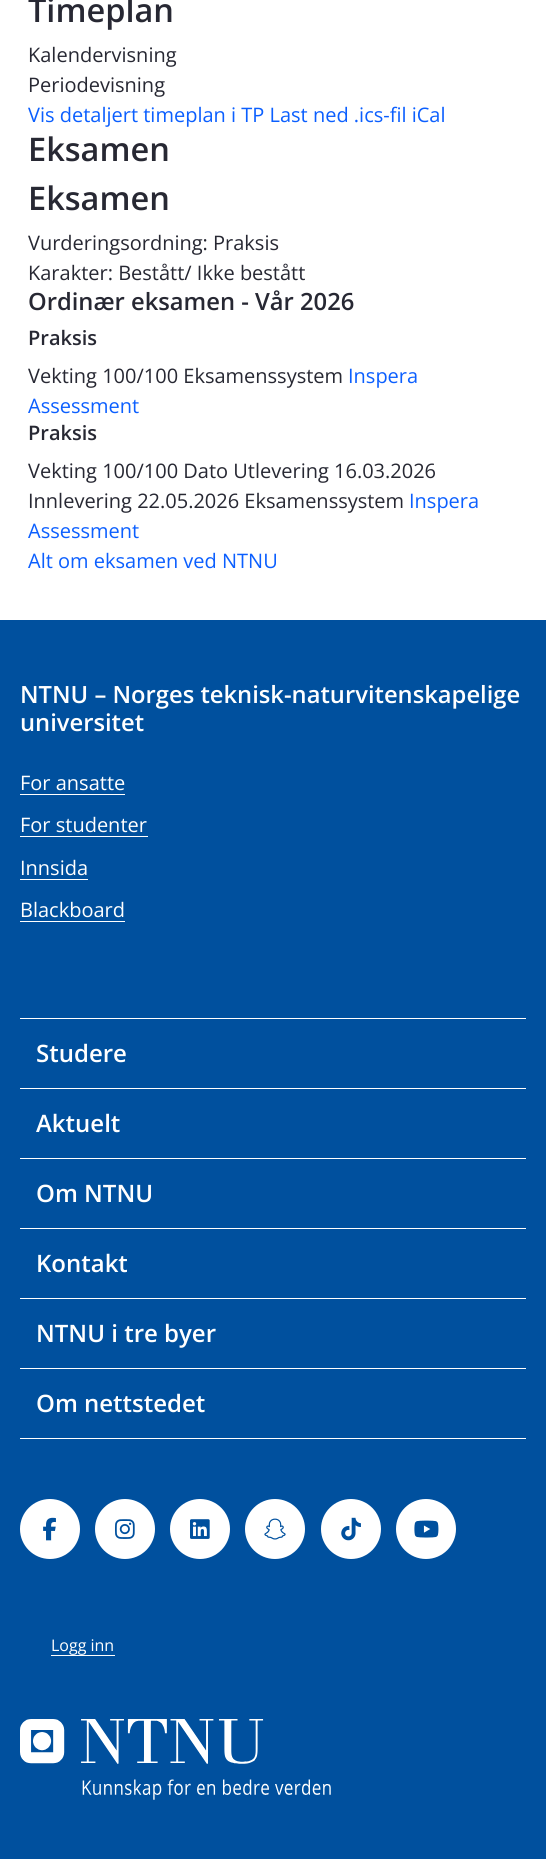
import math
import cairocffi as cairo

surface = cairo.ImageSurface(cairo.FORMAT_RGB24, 546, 1859)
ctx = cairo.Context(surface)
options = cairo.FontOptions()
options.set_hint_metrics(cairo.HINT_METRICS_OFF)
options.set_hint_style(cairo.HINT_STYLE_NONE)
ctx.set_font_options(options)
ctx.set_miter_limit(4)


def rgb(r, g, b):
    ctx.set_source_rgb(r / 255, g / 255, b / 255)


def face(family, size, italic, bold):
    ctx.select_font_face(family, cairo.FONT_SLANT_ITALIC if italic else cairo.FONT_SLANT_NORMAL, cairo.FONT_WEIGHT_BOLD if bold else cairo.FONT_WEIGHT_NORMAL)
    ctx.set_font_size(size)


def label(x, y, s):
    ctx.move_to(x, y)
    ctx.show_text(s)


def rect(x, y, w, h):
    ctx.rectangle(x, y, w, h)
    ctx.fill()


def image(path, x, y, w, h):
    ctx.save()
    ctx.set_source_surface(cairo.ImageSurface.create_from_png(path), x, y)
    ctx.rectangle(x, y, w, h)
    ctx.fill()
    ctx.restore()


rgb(255, 255, 255)
ctx.paint()
face('Open Sans SemiBold', 32.5, 0, 0)
rgb(39, 40, 51)
label(28, 22, 'Timeplan')
face('Open Sans', 20, 0, 0)
label(28, 62, 'Kalendervisning')
label(28, 92, 'Periodevisning')
rgb(11, 95, 255)
label(28, 122, 'Vis detaljert timeplan i TP Last ned .ics-fil iCal')
face('Open Sans SemiBold', 32.5, 0, 0)
rgb(39, 40, 51)
label(28, 161, 'Eksamen')
label(28, 210, 'Eksamen')
face('Open Sans', 20, 0, 0)
label(28, 250, 'Vurderingsordning: Praksis')
label(28, 280, 'Karakter: Bestått/ Ikke bestått')
face('Open Sans SemiBold', 23.75, 0, 0)
label(28, 310, 'Ordinær eksamen - Vår 2026')
face('Open Sans SemiBold', 20, 0, 0)
label(28, 345, 'Praksis')
face('Open Sans', 20, 0, 0)
label(28, 383, 'Vekting 100/100 Eksamenssystem')
rgb(11, 95, 255)
label(348, 383, 'Inspera')
label(28, 413, 'Assessment')
face('Open Sans SemiBold', 20, 0, 0)
rgb(39, 40, 51)
label(28, 440, 'Praksis')
face('Open Sans', 20, 0, 0)
label(28, 478, 'Vekting 100/100 Dato Utlevering 16.03.2026')
label(28, 508, 'Innlevering 22.05.2026 Eksamenssystem')
rgb(11, 95, 255)
label(409, 508, 'Inspera')
label(28, 538, 'Assessment')
label(28, 568, 'Alt om eksamen ved NTNU')
rgb(0, 80, 158)
rect(0, 620, 546, 1239)
face('Open Sans SemiBold', 23.75, 0, 0)
rgb(255, 255, 255)
label(20, 703, 'NTNU – Norges teknisk-naturvitenskapelige')
label(20, 731, 'universitet')
face('Open Sans', 20, 0, 0)
label(20, 790, 'For ansatte')
rect(20, 794, 105, 1)
label(20, 832, 'For studenter')
rect(20, 836, 128, 1)
label(20, 875, 'Innsida')
rect(20, 879, 68, 1)
label(20, 917, 'Blackboard')
rect(20, 921, 105, 1)
rect(20, 1018, 506, 1)
face('Open Sans SemiBold', 24, 0, 0)
label(36, 1062, 'Studere')
rect(20, 1088, 506, 1)
label(36, 1132, 'Aktuelt')
rect(20, 1158, 506, 1)
label(36, 1202, 'Om NTNU')
rect(20, 1228, 506, 1)
label(36, 1272, 'Kontakt')
rect(20, 1298, 506, 1)
label(36, 1342, 'NTNU i tre byer')
rect(20, 1368, 506, 1)
rect(20, 1438, 506, 1)
label(36, 1412, 'Om nettstedet')
ctx.new_path()
ctx.arc(50, 1529, 30, 0, 2 * math.pi)
ctx.fill()
image('image0.png', 43, 1517, 13, 24)
ctx.arc(125, 1529, 30, 0, 2 * math.pi)
ctx.fill()
image('image1.png', 115, 1519, 20, 20)
ctx.arc(200, 1529, 30, 0, 2 * math.pi)
ctx.fill()
image('image2.png', 190, 1519, 20, 20)
ctx.arc(275, 1529, 30, 0, 2 * math.pi)
ctx.fill()
image('image3.png', 264, 1518, 22, 22)
ctx.arc(351, 1529, 30, 0, 2 * math.pi)
ctx.fill()
image('image4.png', 341, 1517, 20, 24)
ctx.arc(426, 1529, 30, 0, 2 * math.pi)
ctx.fill()
image('image5.png', 414, 1520, 25, 18)
face('Open Sans', 16, 0, 0)
label(51, 1651, 'Logg inn')
rect(51, 1655, 64, 1)
image('image6.png', 20, 1719, 311, 81)
surface.write_to_png('render.png')
